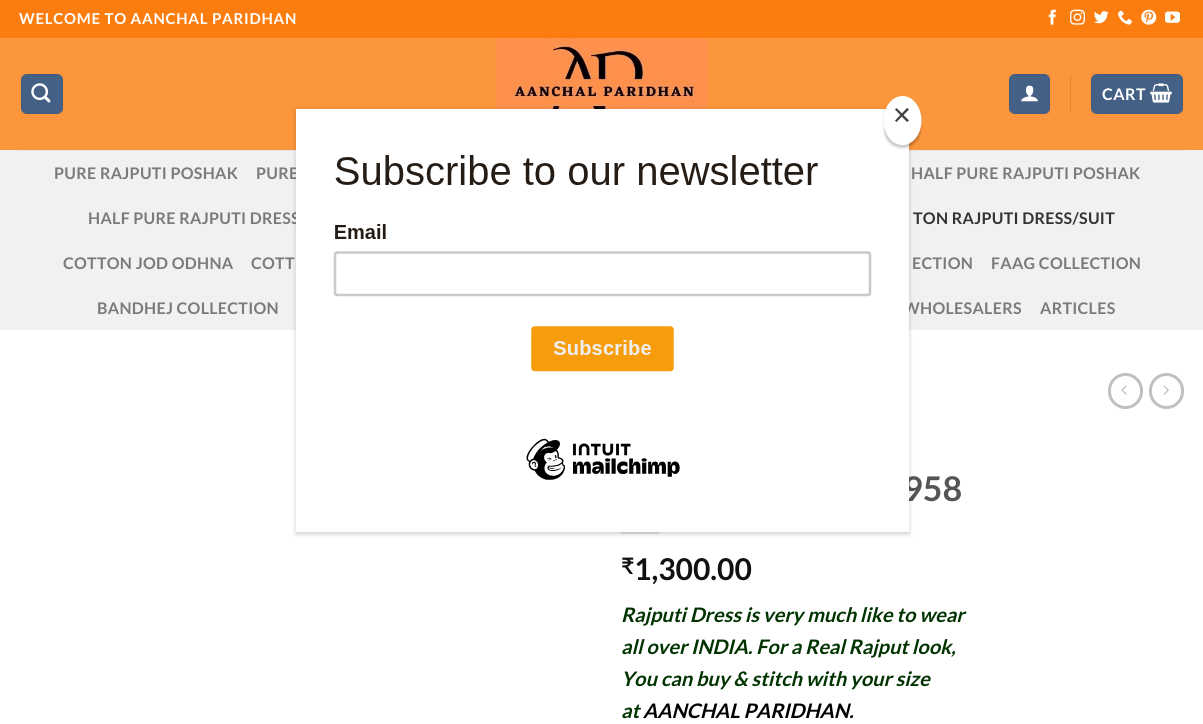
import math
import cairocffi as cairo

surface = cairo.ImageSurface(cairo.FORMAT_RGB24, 1203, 724)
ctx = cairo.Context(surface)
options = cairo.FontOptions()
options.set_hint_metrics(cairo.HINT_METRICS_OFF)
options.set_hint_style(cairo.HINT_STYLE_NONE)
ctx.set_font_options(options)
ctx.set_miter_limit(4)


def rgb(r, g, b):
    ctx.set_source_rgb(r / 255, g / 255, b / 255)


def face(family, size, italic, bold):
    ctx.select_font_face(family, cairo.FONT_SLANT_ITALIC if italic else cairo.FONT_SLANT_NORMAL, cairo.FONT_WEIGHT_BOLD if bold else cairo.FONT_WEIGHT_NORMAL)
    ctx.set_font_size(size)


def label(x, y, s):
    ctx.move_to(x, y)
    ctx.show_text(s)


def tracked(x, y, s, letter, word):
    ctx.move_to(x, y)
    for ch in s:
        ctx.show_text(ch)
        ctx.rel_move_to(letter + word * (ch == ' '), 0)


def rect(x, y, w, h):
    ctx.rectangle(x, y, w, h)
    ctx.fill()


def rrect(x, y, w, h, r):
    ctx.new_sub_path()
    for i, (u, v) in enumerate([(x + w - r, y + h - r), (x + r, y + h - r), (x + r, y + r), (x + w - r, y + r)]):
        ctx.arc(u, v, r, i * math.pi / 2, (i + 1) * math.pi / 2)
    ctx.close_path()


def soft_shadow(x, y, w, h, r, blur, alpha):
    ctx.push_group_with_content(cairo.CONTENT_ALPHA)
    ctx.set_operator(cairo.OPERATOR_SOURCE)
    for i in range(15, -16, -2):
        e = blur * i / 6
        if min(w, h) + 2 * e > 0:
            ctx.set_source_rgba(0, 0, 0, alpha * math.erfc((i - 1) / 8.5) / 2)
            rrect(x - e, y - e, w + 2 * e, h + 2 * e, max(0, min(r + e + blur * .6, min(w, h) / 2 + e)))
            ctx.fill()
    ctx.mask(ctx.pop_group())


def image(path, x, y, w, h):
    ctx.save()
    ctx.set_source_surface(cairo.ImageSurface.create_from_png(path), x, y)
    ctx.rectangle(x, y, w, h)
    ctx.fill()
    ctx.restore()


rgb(255, 255, 255)
ctx.paint()
rgb(252, 125, 15)
rect(0, 0, 1203, 38)
face('Lato', 15, 0, 1)
rgb(255, 255, 255)
tracked(19, 24, 'WELCOME TO AANCHAL PARIDHAN', 0.75, 0)
image('image0.png', 1048, 9, 8, 16)
image('image1.png', 1070, 9, 15, 16)
image('image2.png', 1094, 11, 15, 13)
image('image3.png', 1118, 10, 14, 15)
image('image4.png', 1141, 9, 16, 16)
image('image5.png', 1165, 11, 15, 12)
rgb(252, 150, 60)
rect(0, 38, 1203, 112)
rgb(68, 96, 132)
rrect(21, 74, 42, 40, 6)
ctx.fill()
ctx.rectangle(21.5, 74.5, 41, 39)
ctx.set_source_rgba(0, 0, 0, 0.05)
ctx.set_line_width(1)
ctx.stroke()
image('image6.png', 31, 83, 20, 20)
image('image7.png', 496, 38, 212, 71)
rgb(68, 96, 132)
rrect(1009, 74, 41, 40, 6)
ctx.fill()
ctx.rectangle(1009.5, 74.5, 40, 39)
ctx.set_source_rgba(0, 0, 0, 0.05)
ctx.stroke()
image('image8.png', 1021, 85, 17, 17)
rgb(227, 135, 54)
rect(1070, 75, 1, 38)
rgb(68, 96, 132)
rrect(1091, 74, 92, 40, 6)
ctx.fill()
ctx.rectangle(1091.5, 74.5, 91, 39)
ctx.set_source_rgba(0, 0, 0, 0.05)
ctx.stroke()
face('Lato', 16, 0, 1)
rgb(255, 255, 255)
tracked(1102, 100, 'CART', 0.5, 0)
image('image9.png', 1150, 83, 22, 20)
rgb(241, 241, 241)
rect(0, 150, 1203, 180)
rgb(229, 229, 229)
rect(19, 150, 1166, 1)
rgb(123, 123, 123)
tracked(54, 179, 'PURE RAJPUTI POSHAK', 0.3, 0)
tracked(256, 179, 'PURE', 0.3, 0)
tracked(911, 179, 'HALF PURE RAJPUTI POSHAK', 0.3, 0)
tracked(88, 224, 'HALF PURE RAJPUTI DRESS', 0.3, 0)
rgb(51, 51, 51)
tracked(913, 224, 'TON RAJPUTI DRESS/SUIT', 0.3, 0)
rgb(123, 123, 123)
tracked(63, 269, 'COTTON JOD ODHNA', 0.3, 0)
tracked(251, 269, 'COTT', 0.3, 0)
tracked(912, 269, 'ECTION', 0.3, 0)
tracked(991, 269, 'FAAG COLLECTION', 0.3, 0)
tracked(97, 314, 'BANDHEJ COLLECTION', 0.3, 0)
tracked(903, 314, 'WHOLESALERS', 0.3, 0)
tracked(1040, 314, 'ARTICLES', 0.3, 0)
rrect(1109.5, 374.5, 32, 33, 16)
rgb(192, 192, 192)
ctx.set_line_width(3)
ctx.stroke()
image('image10.png', 1121, 385, 6, 10)
rrect(1150.5, 374.5, 32, 33, 16)
ctx.stroke()
image('image11.png', 1163, 385, 6, 10)
face('Lato', 34, 0, 1)
rgb(85, 85, 85)
label(903, 501, '958')
rgb(230, 230, 230)
rect(621, 532, 38, 2)
face('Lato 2', 22, 0, 1)
rgb(17, 17, 17)
label(621, 574, '₹')
face('Lato', 30, 0, 1)
label(634, 580, '1,300.00')
face('Lato', 20, 1, 1)
rgb(0, 51, 0)
label(621, 622, 'Rajputi Dress is very much like to wear')
label(621, 654, 'all over INDIA. For a Real Rajput look,')
label(621, 686, 'You can buy & stitch with your size')
label(621, 718, 'at')
rgb(0, 0, 0)
label(643, 718, 'AANCHAL PARIDHAN.')
rgb(0, 0, 0)
soft_shadow(296, 111, 613, 423, 0, 2.5, 0.2)
image('image12.png', 296, 109, 613, 423)
soft_shadow(884, 99, 37, 49, 18.5, 1, 0.2)
rgb(255, 255, 255)
ctx.new_path()
ctx.move_to(902.5, 96)
ctx.curve_to(913, 96, 921.5, 107, 921.5, 120.5)
ctx.curve_to(921.5, 134, 913, 145, 902.5, 145)
ctx.curve_to(892, 145, 883.5, 134, 883.5, 120.5)
ctx.curve_to(883.5, 107, 892, 96, 902.5, 96)
ctx.close_path()
ctx.fill()
rgb(65, 65, 65)
ctx.new_path()
ctx.move_to(907, 108)
ctx.line_to(909, 109.5)
ctx.line_to(896.5, 122)
ctx.line_to(895, 120.5)
ctx.close_path()
ctx.fill()
ctx.new_path()
ctx.move_to(895, 109.5)
ctx.line_to(896.5, 108)
ctx.line_to(909, 120.5)
ctx.line_to(907, 122)
ctx.close_path()
ctx.fill()
surface.write_to_png('render.png')
